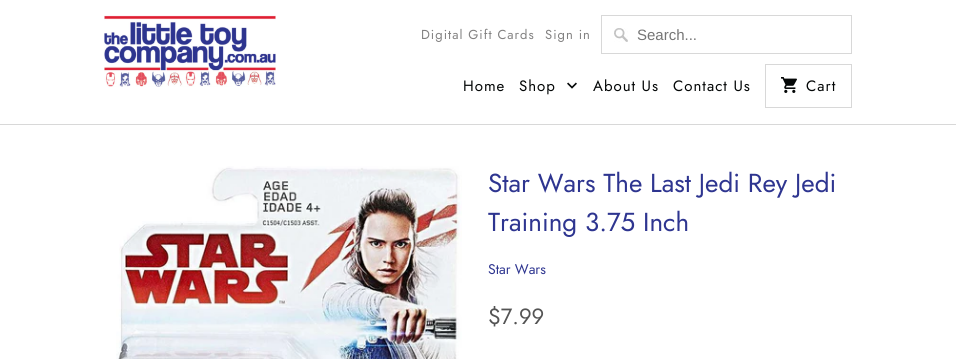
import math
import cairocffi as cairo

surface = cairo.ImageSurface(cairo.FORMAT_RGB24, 956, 359)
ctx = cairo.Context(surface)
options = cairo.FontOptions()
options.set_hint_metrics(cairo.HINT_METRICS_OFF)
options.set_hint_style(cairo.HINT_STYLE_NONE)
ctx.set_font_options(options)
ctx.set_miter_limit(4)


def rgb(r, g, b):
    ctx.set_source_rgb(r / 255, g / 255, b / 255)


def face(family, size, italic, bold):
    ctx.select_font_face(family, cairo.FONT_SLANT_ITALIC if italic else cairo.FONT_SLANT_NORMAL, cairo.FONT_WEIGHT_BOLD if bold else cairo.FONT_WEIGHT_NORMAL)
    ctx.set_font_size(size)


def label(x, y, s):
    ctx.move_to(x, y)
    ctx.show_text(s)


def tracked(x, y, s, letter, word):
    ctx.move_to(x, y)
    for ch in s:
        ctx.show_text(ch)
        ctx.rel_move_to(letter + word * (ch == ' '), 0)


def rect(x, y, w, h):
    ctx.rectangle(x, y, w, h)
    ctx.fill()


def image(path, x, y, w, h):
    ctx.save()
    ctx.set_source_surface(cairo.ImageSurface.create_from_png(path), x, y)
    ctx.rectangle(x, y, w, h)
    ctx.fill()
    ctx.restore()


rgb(255, 255, 255)
ctx.paint()
rgb(216, 216, 216)
rect(0, 124, 956, 1)
image('image0.png', 104, 15, 172, 72)
face('Jost', 13, 0, 0)
rgb(130, 129, 129)
tracked(421, 39, 'Digital Gift Cards', 1, 0)
tracked(545, 39, 'Sign in', 1, 0)
image('image1.png', 614, 28, 14, 14)
ctx.rectangle(601.5, 15.5, 250, 38)
rgb(216, 216, 216)
ctx.set_line_width(1)
ctx.stroke()
face('Liberation Sans', 15, 0, 0)
rgb(117, 117, 117)
label(637, 40, 'Search...')
face('Jost', 15, 0, 0)
rgb(4, 7, 7)
tracked(463, 91, 'Home', 1, 0)
tracked(519, 91, 'Shop', 1, 0)
image('image2.png', 567, 82, 10, 7)
tracked(593, 91, 'About Us', 1, 0)
tracked(673, 91, 'Contact Us', 1, 0)
ctx.rectangle(765.5, 64.5, 86, 43)
rgb(216, 216, 216)
ctx.stroke()
image('image3.png', 781, 77, 16, 16)
rgb(4, 7, 7)
tracked(806, 91, 'Cart', 1, 0)
image('image4.png', 116, 166, 346, 193)
face('Jost', 26, 0, 0)
rgb(46, 53, 144)
label(488, 192, 'Star Wars The Last Jedi Rey Jedi')
label(488, 231, 'Training 3.75 Inch')
face('Jost', 14, 0, 0)
label(488, 274, 'Star Wars')
face('Jost', 22, 0, 0)
rgb(84, 84, 84)
label(488, 324, '$7.99')
surface.write_to_png('render.png')
